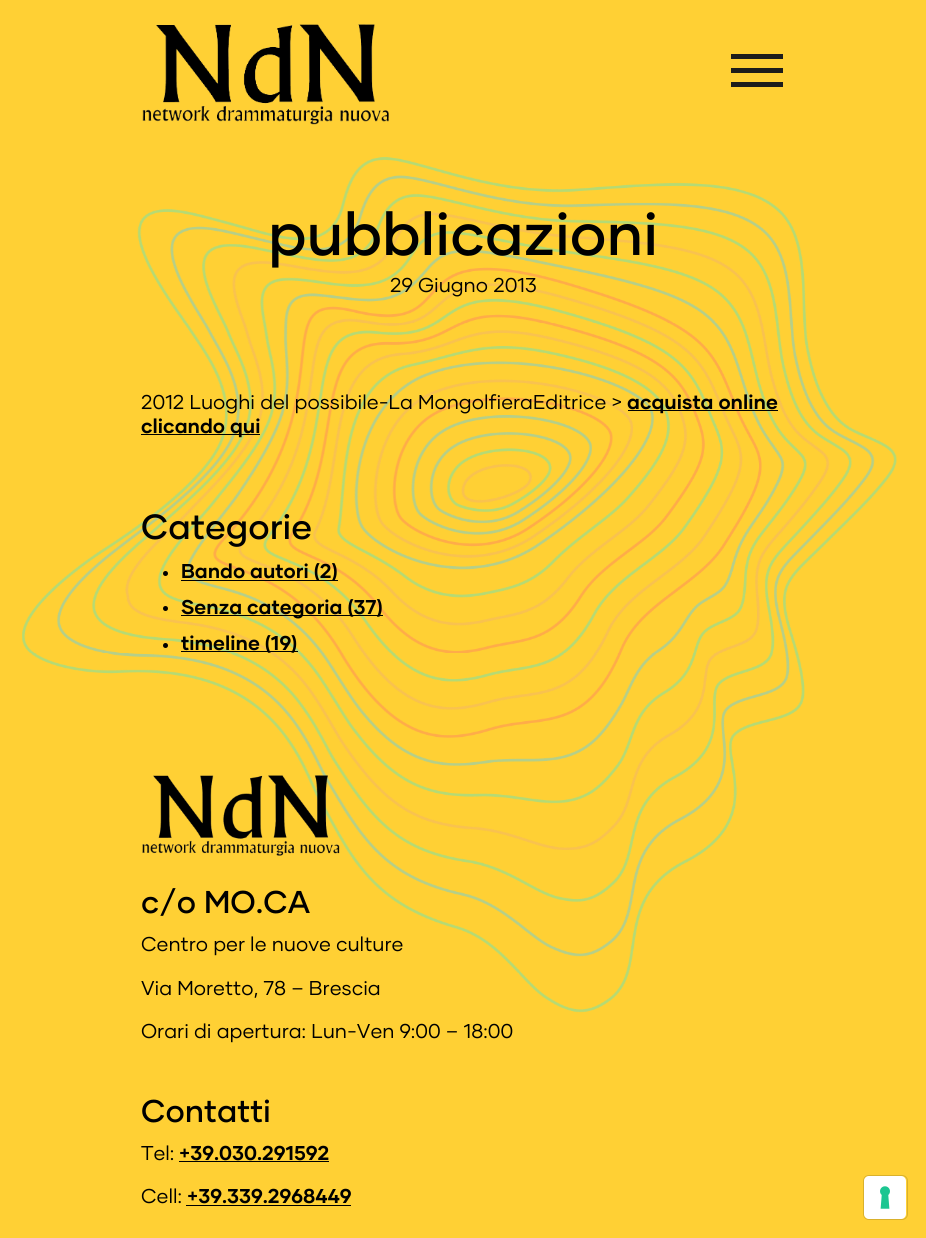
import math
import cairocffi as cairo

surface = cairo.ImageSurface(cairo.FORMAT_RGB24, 926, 1238)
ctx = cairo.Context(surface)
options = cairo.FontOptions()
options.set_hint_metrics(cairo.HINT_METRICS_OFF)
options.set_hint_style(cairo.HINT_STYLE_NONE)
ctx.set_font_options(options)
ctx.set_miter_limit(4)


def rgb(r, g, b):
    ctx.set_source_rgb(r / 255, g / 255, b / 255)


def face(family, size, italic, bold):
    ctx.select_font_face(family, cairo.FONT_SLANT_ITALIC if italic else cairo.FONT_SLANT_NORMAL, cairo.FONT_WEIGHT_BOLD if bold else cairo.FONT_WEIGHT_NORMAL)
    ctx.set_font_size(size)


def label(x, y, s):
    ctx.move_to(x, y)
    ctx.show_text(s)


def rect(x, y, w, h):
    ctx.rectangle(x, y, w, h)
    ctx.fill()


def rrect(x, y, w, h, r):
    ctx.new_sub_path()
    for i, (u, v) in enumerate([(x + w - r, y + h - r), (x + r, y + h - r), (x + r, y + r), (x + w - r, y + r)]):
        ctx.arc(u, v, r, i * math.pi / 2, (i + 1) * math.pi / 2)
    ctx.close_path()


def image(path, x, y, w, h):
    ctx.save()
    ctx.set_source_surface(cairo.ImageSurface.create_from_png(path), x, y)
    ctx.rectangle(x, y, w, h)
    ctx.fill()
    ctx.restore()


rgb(255, 208, 52)
ctx.paint()
image('image0.png', 142, 24, 247, 101)
rgb(29, 29, 27)
ctx.new_path()
ctx.move_to(731, 68)
ctx.line_to(783, 68)
ctx.line_to(783, 73)
ctx.line_to(731, 73)
ctx.close_path()
ctx.move_to(731, 54)
ctx.line_to(783, 54)
ctx.line_to(783, 59)
ctx.line_to(731, 59)
ctx.close_path()
ctx.move_to(731, 82)
ctx.line_to(783, 82)
ctx.line_to(783, 87)
ctx.line_to(731, 87)
ctx.close_path()
ctx.fill()
image('image1.png', 22, 157, 875, 856)
face('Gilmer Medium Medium', 60, 0, 0)
rgb(0, 0, 0)
label(268, 255, 'pubblicazioni')
face('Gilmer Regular', 20, 0, 0)
label(390, 292, '29 Giugno 2013')
label(141, 409, '2012 Luoghi del possibile-La MongolfieraEditrice >')
rect(628, 410, 150, 1)
face('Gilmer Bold', 20, 0, 1)
label(627, 409, 'acquista online')
rect(141, 434, 119, 1)
label(141, 433, 'clicando qui')
face('Gilmer Medium Medium', 35, 0, 0)
label(141, 539, 'Categorie')
ctx.new_path()
ctx.arc(165.5, 573.5, 2.5, 0, 2 * math.pi)
ctx.fill()
rect(181, 580, 157, 1)
face('Gilmer Bold', 20, 0, 1)
label(181, 578, 'Bando autori (2)')
ctx.new_path()
ctx.arc(165.5, 608.5, 2.5, 0, 2 * math.pi)
ctx.fill()
rect(181, 615, 202, 1)
label(181, 614, 'Senza categoria (37)')
ctx.new_path()
ctx.arc(165.5, 645.5, 2.5, 0, 2 * math.pi)
ctx.fill()
rect(181, 651, 117, 1)
label(181, 650, 'timeline (19)')
image('image2.png', 142, 775, 198, 81)
face('Gilmer Medium Medium', 31.5, 0, 0)
label(141, 913, 'c/o MO.CA')
face('Gilmer Regular', 20, 0, 0)
label(141, 951, 'Centro per le nuove culture')
label(141, 995, 'Via Moretto, 78 – Brescia')
label(141, 1038, 'Orari di apertura: Lun-Ven 9:00 – 18:00')
face('Gilmer Medium Medium', 31.5, 0, 0)
label(141, 1122, 'Contatti')
face('Gilmer Regular', 20, 0, 0)
label(141, 1160, 'Tel:')
face('Gilmer Bold', 20, 0, 1)
label(179, 1160, '+39.030.291592')
rect(179, 1161, 150, 1)
face('Gilmer Regular', 20, 0, 0)
label(141, 1203, 'Cell:')
face('Gilmer Bold', 20, 0, 1)
label(187, 1203, '+39.339.2968449')
rect(186, 1205, 165, 1)
rrect(863.5, 1175.5, 44, 44, 5.5)
rgb(217, 177, 44)
ctx.set_line_width(1)
ctx.stroke()
rgb(255, 255, 255)
rrect(864, 1176, 42, 43, 5)
ctx.fill()
image('image3.png', 880, 1186, 10, 23)
surface.write_to_png('render.png')
